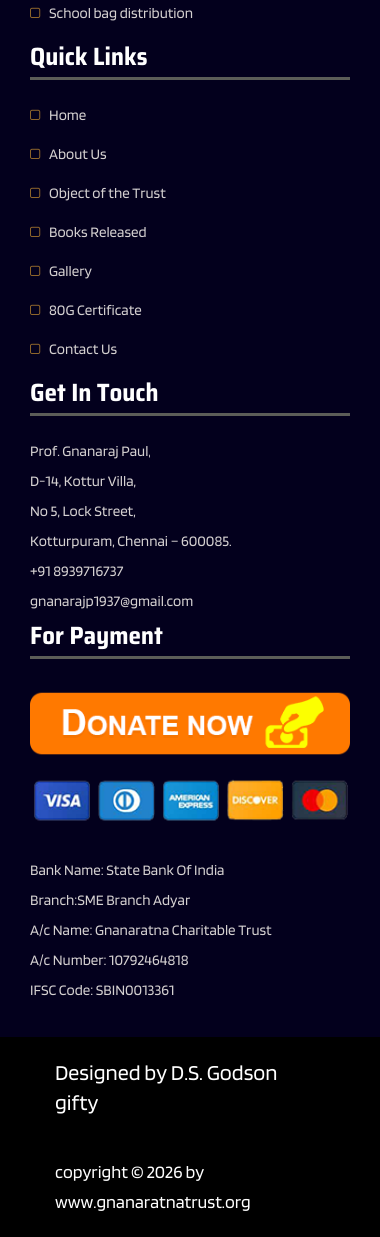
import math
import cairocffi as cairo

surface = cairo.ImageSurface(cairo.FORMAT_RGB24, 380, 1237)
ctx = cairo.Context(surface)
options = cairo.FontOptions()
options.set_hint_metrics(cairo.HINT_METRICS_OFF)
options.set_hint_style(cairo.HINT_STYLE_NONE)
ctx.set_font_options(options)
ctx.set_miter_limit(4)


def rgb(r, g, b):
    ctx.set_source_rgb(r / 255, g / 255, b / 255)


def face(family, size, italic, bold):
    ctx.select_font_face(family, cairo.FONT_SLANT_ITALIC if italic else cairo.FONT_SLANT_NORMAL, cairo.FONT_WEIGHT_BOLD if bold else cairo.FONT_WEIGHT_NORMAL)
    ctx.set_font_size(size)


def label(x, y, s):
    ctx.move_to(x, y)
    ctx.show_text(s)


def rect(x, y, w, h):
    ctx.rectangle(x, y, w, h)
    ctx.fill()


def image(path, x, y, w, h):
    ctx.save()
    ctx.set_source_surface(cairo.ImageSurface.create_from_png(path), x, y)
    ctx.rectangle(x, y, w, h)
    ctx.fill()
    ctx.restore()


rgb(0, 0, 0)
ctx.paint()
rgb(3, 0, 29)
rect(0, 0, 380, 1037)
image('image0.png', 30, 7, 11, 11)
face('Blinker', 15, 0, 0)
rgb(212, 208, 208)
label(49, 18, 'School bag distribution')
rgb(92, 93, 88)
rect(30, 77, 320, 3)
image('image1.png', 31, 46, 116, 22)
image('image0.png', 30, 109, 11, 11)
rgb(212, 208, 208)
label(49, 120, 'Home')
image('image0.png', 30, 148, 11, 11)
label(49, 159, 'About Us')
image('image0.png', 30, 187, 11, 11)
label(49, 198, 'Object of the Trust')
image('image0.png', 30, 226, 11, 11)
label(49, 237, 'Books Released')
image('image0.png', 30, 265, 11, 11)
label(49, 276, 'Gallery')
image('image0.png', 30, 304, 11, 11)
label(49, 315, '80G Certificate')
image('image0.png', 30, 343, 11, 11)
label(49, 354, 'Contact Us')
rgb(92, 93, 88)
rect(30, 413, 320, 3)
image('image2.png', 31, 382, 127, 20)
rgb(212, 208, 208)
label(30, 456, 'Prof. Gnanaraj Paul,')
label(30, 486, 'D-14, Kottur Villa,')
label(30, 516, 'No 5, Lock Street,')
label(30, 546, 'Kotturpuram, Chennai – 600085.')
label(30, 576, '+91 8939716737')
label(30, 606, 'gnanarajp1937@gmail.com')
rgb(92, 93, 88)
rect(30, 656, 320, 3)
image('image3.png', 31, 626, 132, 24)
image('image4.png', 30, 692, 320, 63)
image('image5.png', 34, 779, 314, 42)
rgb(212, 208, 208)
label(30, 875, 'Bank Name: State Bank Of India')
label(30, 905, 'Branch:SME Branch Adyar')
label(30, 935, 'A/c Name: Gnanaratna Charitable Trust')
label(30, 965, 'A/c Number: 10792464818')
label(30, 995, 'IFSC Code: SBIN0013361')
face('Blinker', 22, 0, 0)
rgb(255, 255, 255)
label(55, 1080, 'Designed by D.S. Godson')
label(55, 1110, 'gifty')
face('Blinker', 18, 0, 0)
label(55, 1178, 'copyright © 2026 by')
label(55, 1208, 'www.gnanaratnatrust.org')
surface.write_to_png('render.png')
